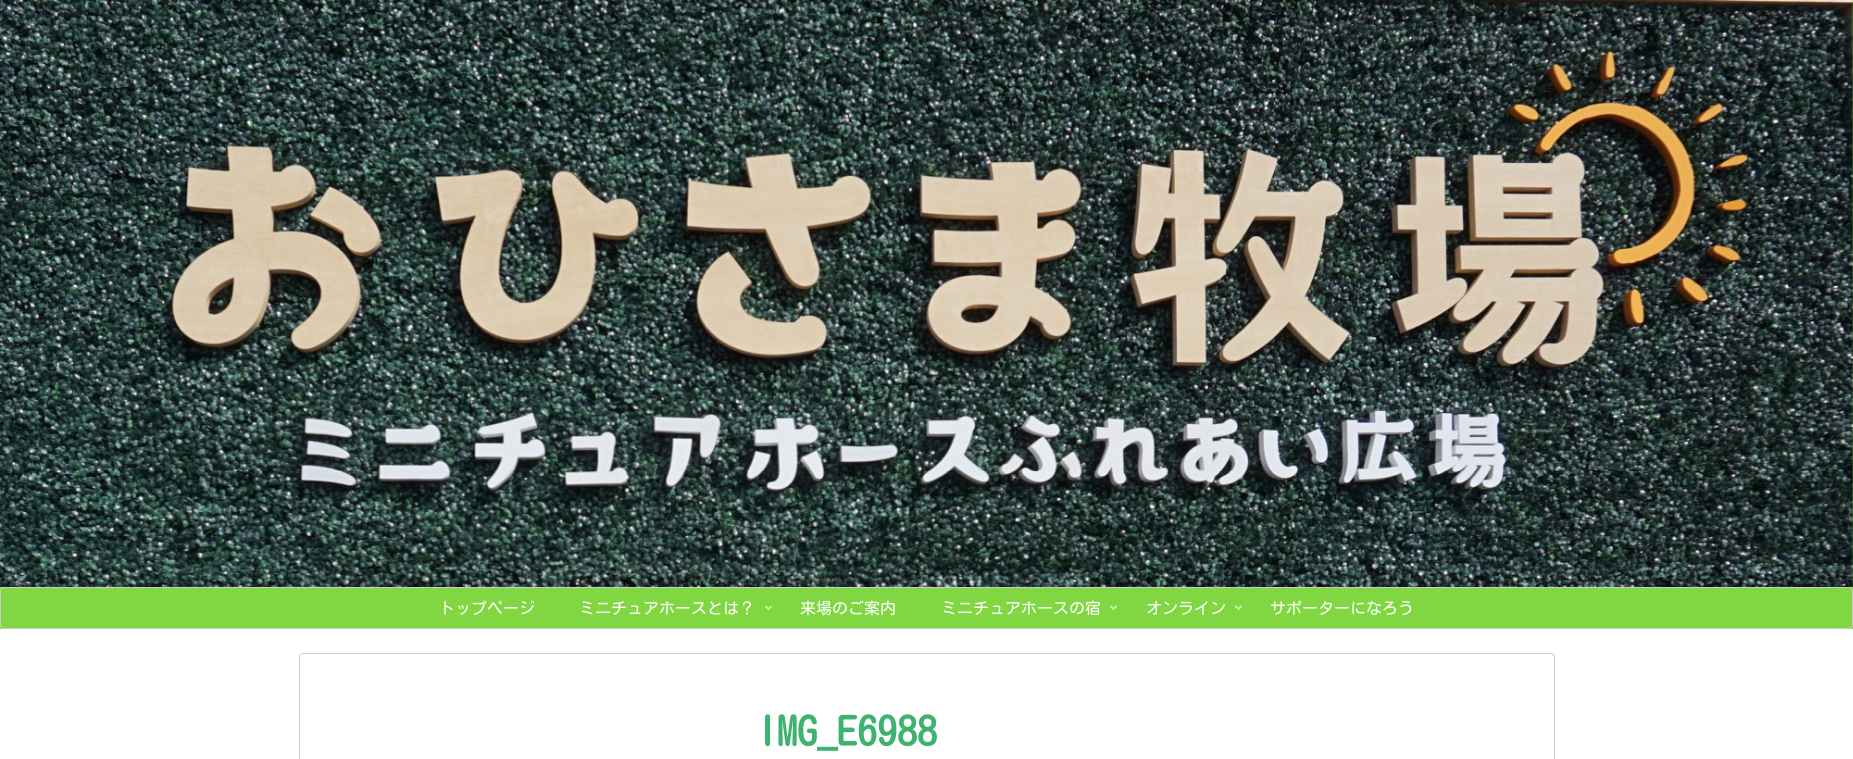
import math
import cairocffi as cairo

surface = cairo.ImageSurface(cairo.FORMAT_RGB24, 1853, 759)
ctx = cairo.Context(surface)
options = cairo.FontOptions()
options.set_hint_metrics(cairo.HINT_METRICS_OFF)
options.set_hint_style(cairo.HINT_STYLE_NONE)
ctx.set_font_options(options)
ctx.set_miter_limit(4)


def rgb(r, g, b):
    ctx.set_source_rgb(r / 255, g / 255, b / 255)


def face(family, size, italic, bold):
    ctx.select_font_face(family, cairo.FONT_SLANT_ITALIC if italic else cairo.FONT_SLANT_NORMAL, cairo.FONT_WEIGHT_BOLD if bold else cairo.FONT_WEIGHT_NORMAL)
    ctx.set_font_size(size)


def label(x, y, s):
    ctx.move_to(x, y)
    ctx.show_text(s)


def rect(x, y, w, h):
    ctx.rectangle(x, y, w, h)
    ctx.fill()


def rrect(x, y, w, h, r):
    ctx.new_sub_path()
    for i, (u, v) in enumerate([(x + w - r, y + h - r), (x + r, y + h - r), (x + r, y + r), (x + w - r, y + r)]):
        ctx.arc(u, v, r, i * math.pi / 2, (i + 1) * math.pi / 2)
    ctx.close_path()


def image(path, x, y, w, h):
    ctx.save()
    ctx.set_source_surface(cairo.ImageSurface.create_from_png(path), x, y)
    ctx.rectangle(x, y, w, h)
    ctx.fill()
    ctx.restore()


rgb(255, 255, 255)
ctx.paint()
rgb(129, 215, 66)
rect(0, 0, 1853, 629)
image('image0.png', 0, 0, 1853, 587)
rrect(0.5, 587.5, 1852, 41, 3.5)
rgb(204, 204, 204)
ctx.set_line_width(1)
ctx.stroke()
face('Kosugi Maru', 16, 0, 0)
rgb(255, 255, 255)
label(439, 614, 'トップページ')
label(579, 614, 'ミニチュアホースとは？')
image('image1.png', 765, 605, 7, 5)
label(800, 614, '来場のご案内')
label(941, 614, 'ミニチュアホースの宿')
image('image1.png', 1110, 605, 7, 5)
label(1146, 614, 'オンライン')
image('image1.png', 1235, 605, 7, 5)
label(1270, 614, 'サポーターになろう')
rrect(299.5, 653.5, 1255, 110, 3.5)
rgb(204, 204, 204)
ctx.stroke()
face('Kosugi Maru', 40, 0, 1)
rgb(62, 179, 112)
label(757, 746, 'IMG_E6988')
surface.write_to_png('render.png')
